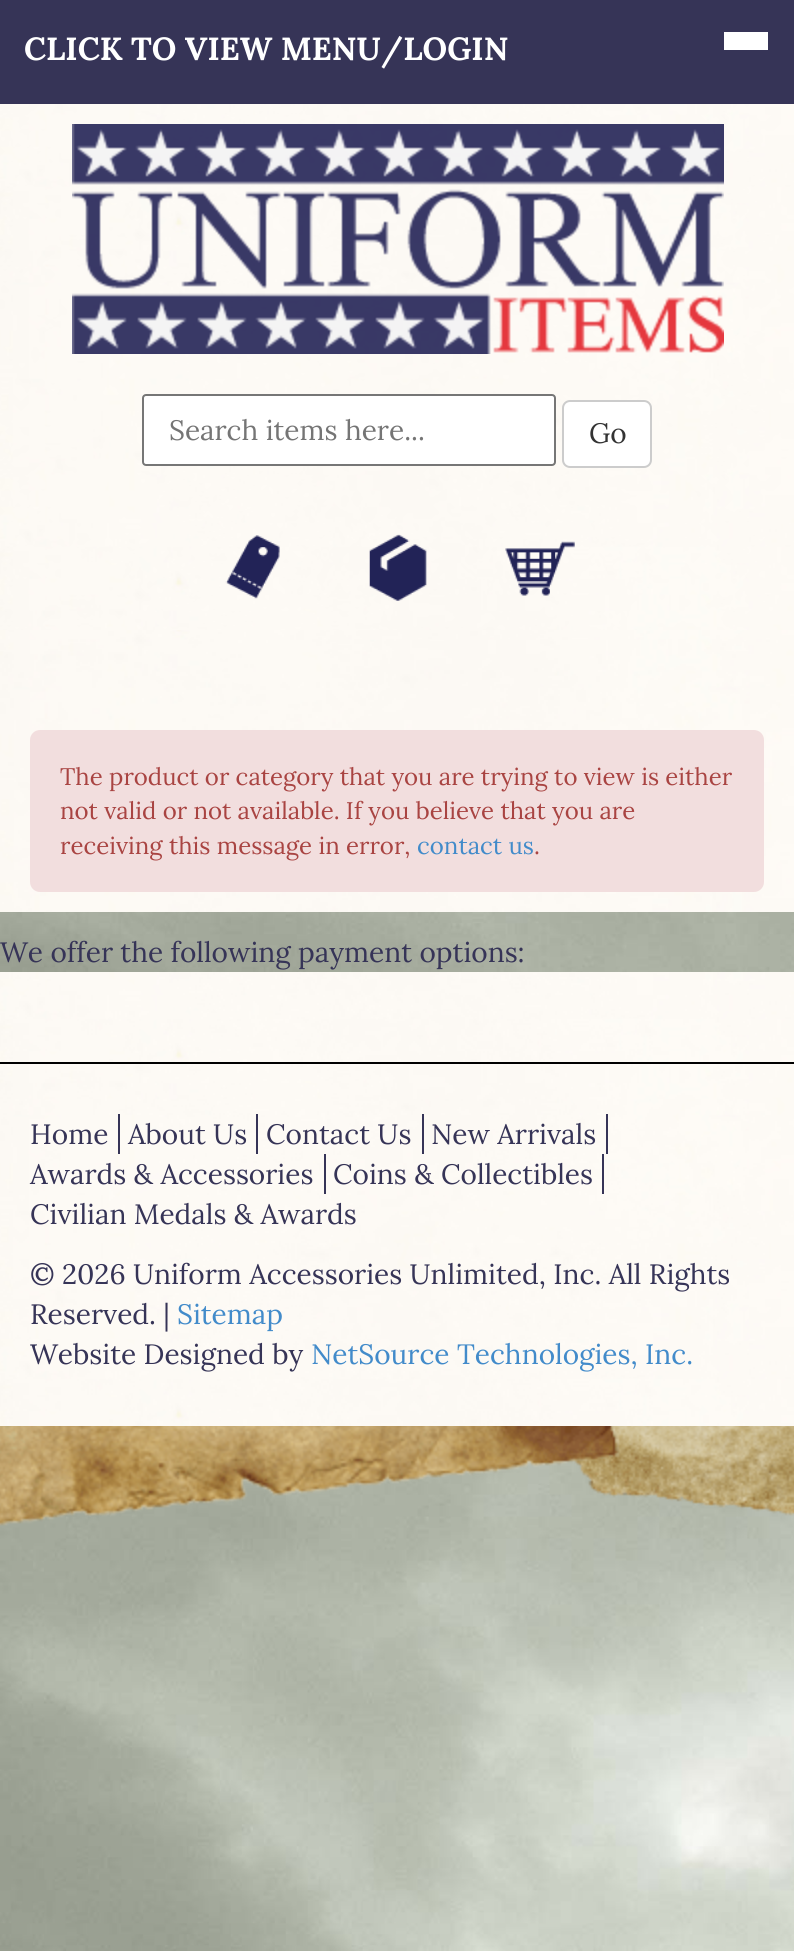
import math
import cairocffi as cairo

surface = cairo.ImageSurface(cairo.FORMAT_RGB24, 794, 1951)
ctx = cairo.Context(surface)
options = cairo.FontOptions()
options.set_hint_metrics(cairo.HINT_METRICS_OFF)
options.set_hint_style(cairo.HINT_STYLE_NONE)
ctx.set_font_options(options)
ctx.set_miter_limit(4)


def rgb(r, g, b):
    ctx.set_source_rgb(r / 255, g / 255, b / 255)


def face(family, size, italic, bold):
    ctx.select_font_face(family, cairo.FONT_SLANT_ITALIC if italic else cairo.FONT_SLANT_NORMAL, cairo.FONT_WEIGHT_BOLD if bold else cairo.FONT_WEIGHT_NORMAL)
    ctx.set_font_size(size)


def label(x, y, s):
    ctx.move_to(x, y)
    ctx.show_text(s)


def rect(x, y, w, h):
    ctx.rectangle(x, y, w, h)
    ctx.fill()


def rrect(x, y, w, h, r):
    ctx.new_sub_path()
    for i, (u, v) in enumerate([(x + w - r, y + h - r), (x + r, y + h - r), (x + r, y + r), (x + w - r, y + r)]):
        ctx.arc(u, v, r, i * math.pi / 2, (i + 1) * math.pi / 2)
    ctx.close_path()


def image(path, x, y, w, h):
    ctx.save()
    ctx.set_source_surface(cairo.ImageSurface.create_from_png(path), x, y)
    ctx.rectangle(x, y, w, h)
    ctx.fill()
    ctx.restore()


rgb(255, 255, 255)
ctx.paint()
image('image0.png', 0, 912, 794, 1039)
rgb(54, 52, 87)
rect(0, 0, 794, 104)
face('Lora', 32, 0, 1)
rgb(255, 255, 255)
label(24, 60, 'CLICK TO VIEW MENU/LOGIN')
rect(724, 32, 44, 18)
image('image1.png', 0, 104, 794, 526)
image('image2.png', 72, 124, 652, 230)
rrect(143, 395, 412, 70, 3)
ctx.fill_preserve()
rgb(118, 118, 118)
ctx.stroke()
face('Lora', 28, 0, 0)
rgb(117, 117, 117)
label(169, 440, 'Search items here...')
rgb(255, 255, 255)
rrect(563, 401, 88, 66, 7)
ctx.fill_preserve()
rgb(204, 204, 204)
ctx.stroke()
rgb(51, 51, 51)
label(589, 443, 'Go')
image('image3.png', 225, 535, 55, 64)
image('image4.png', 369, 534, 58, 67)
image('image5.png', 505, 541, 70, 55)
image('image6.png', 0, 630, 794, 282)
rgb(242, 222, 222)
rrect(30, 730, 734, 162, 10)
ctx.fill()
face('Lora', 24, 0, 0)
rgb(169, 68, 66)
label(60, 785, 'The product or category that you are trying to view is either')
label(60, 819, 'not valid or not available. If you believe that you are')
label(60, 854, 'receiving this message in error,')
rgb(66, 139, 202)
label(417, 854, 'contact us')
rgb(169, 68, 66)
label(534, 854, '.')
face('Lora', 28, 0, 0)
rgb(54, 52, 87)
label(0, 962, 'We offer the following payment options:')
image('image7.png', 0, 972, 794, 454)
rgb(0, 0, 0)
rect(0, 1062, 794, 2)
rgb(54, 52, 87)
rect(118, 1114, 2, 40)
label(30, 1144, 'Home')
rect(256, 1114, 2, 40)
label(128, 1144, 'About Us')
rect(422, 1114, 2, 40)
label(266, 1144, 'Contact Us')
rect(606, 1114, 2, 40)
label(431, 1144, 'New Arrivals')
rect(324, 1154, 2, 40)
label(30, 1184, 'Awards & Accessories')
rect(602, 1154, 2, 40)
label(333, 1184, 'Coins & Collectibles')
label(30, 1224, 'Civilian Medals & Awards')
label(30, 1284, '© 2026 Uniform Accessories Unlimited, Inc. All Rights')
label(30, 1324, 'Reserved. |')
rgb(66, 139, 202)
label(177, 1324, 'Sitemap')
rgb(54, 52, 87)
label(30, 1364, 'Website Designed by')
rgb(66, 139, 202)
label(311, 1364, 'NetSource Technologies, Inc.')
image('image8.png', 0, 1426, 794, 100)
surface.write_to_png('render.png')
